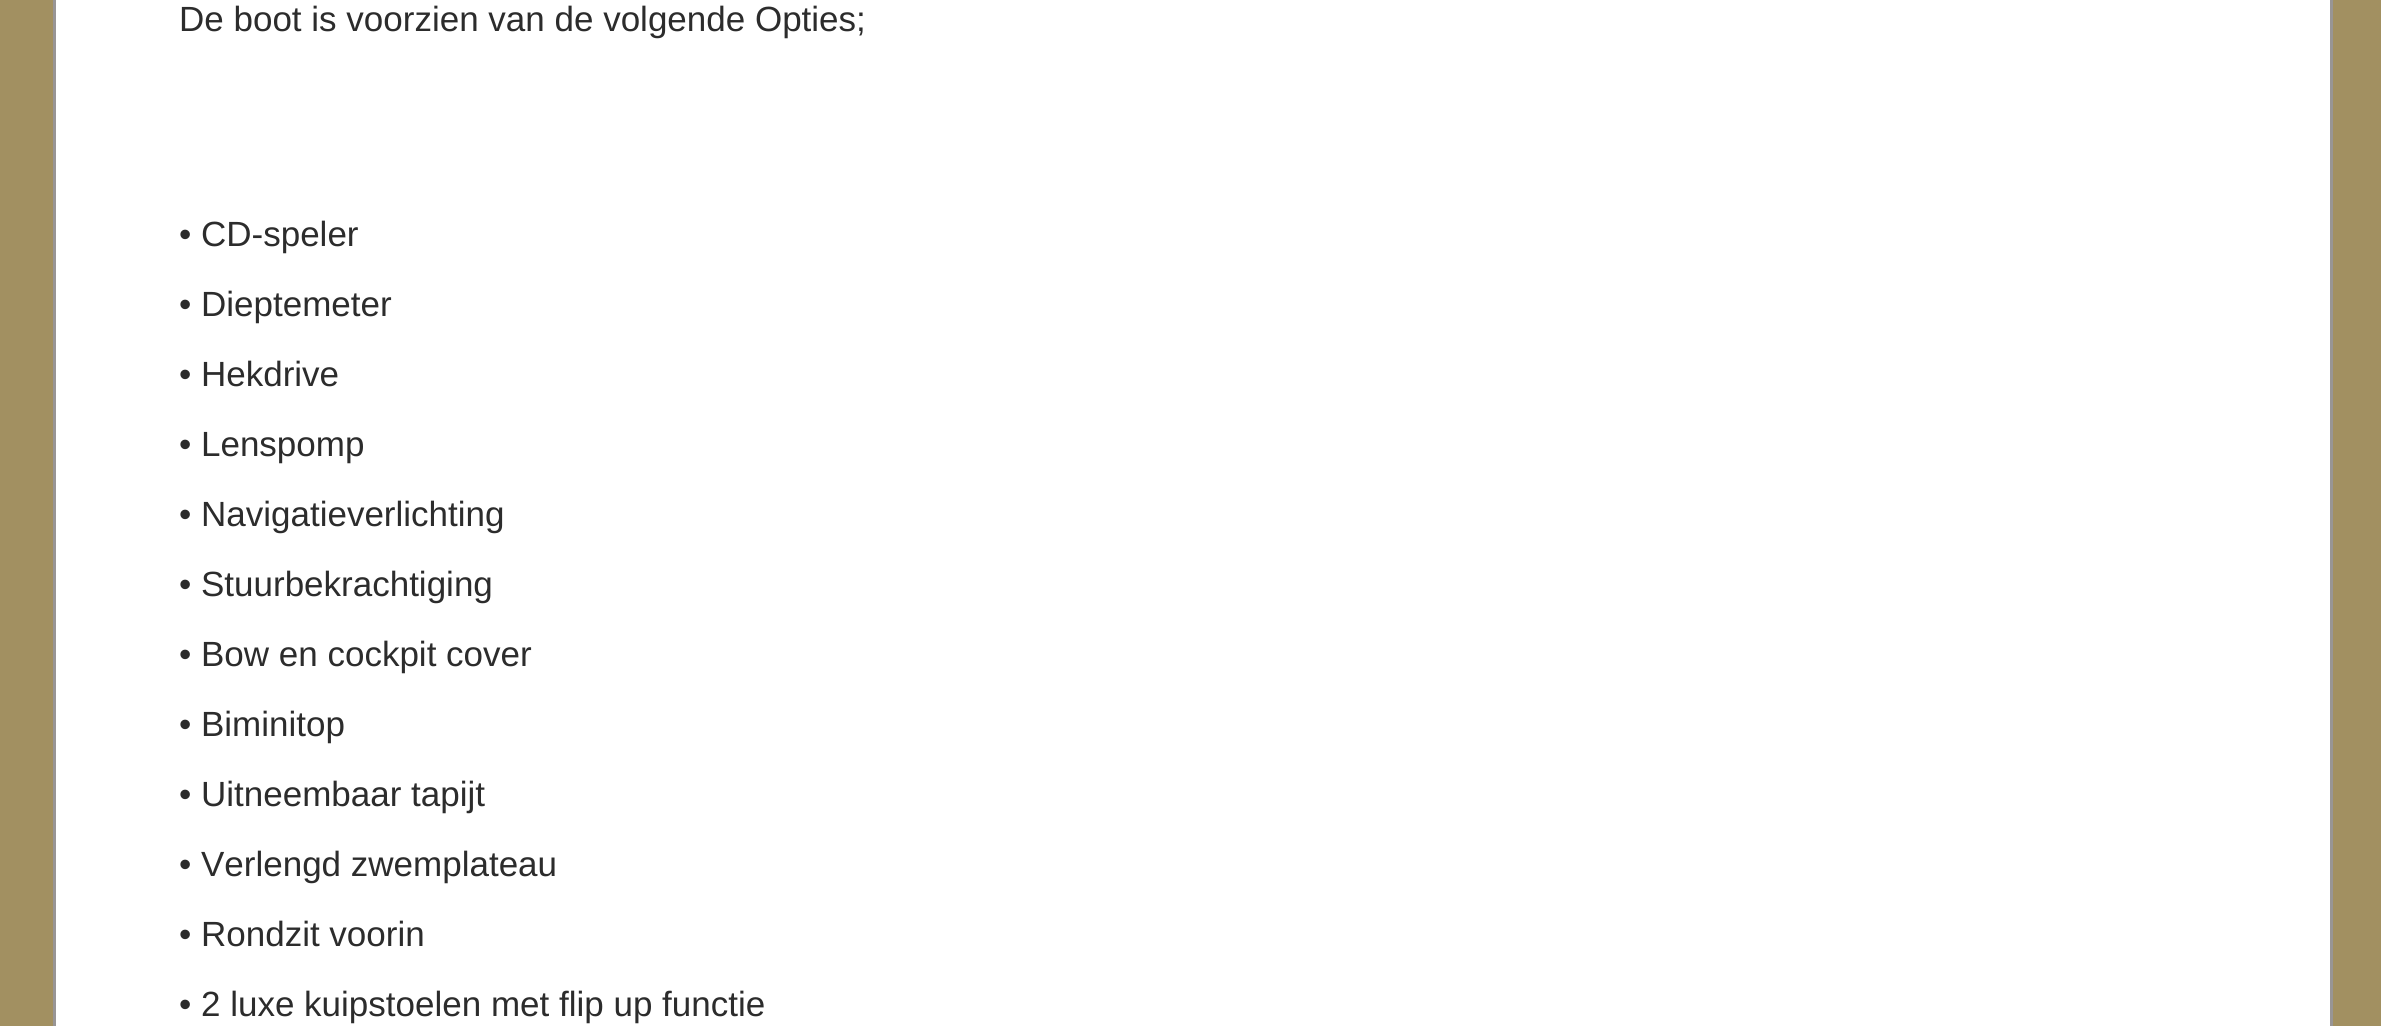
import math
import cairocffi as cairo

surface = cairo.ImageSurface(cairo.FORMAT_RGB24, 2381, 1026)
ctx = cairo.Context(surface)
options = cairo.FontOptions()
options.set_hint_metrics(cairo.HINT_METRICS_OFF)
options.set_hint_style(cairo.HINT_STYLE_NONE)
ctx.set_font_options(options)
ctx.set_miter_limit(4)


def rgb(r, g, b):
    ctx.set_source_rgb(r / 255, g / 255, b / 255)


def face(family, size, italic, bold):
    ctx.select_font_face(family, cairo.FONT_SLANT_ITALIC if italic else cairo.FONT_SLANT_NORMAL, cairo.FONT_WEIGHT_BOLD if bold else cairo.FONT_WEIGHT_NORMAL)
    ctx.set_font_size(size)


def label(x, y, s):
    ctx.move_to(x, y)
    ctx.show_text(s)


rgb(162, 144, 97)
ctx.paint()
rgb(255, 255, 255)
ctx.rectangle(54.5, -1.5, 2277, 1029)
ctx.fill_preserve()
rgb(152, 149, 149)
ctx.set_line_width(3)
ctx.stroke()
face('Liberation Sans', 35, 0, 0)
rgb(44, 44, 44)
label(179, 31, 'De boot is voorzien van de volgende Opties;')
label(179, 246, '• CD-speler')
label(179, 316, '• Dieptemeter')
label(179, 386, '• Hekdrive')
label(179, 456, '• Lenspomp')
label(179, 526, '• Navigatieverlichting')
label(179, 596, '• Stuurbekrachtiging')
label(179, 666, '• Bow en cockpit cover')
label(179, 736, '• Biminitop')
label(179, 806, '• Uitneembaar tapijt')
label(179, 876, '• Verlengd zwemplateau')
label(179, 946, '• Rondzit voorin')
label(179, 1016, '• 2 luxe kuipstoelen met flip up functie')
surface.write_to_png('render.png')
